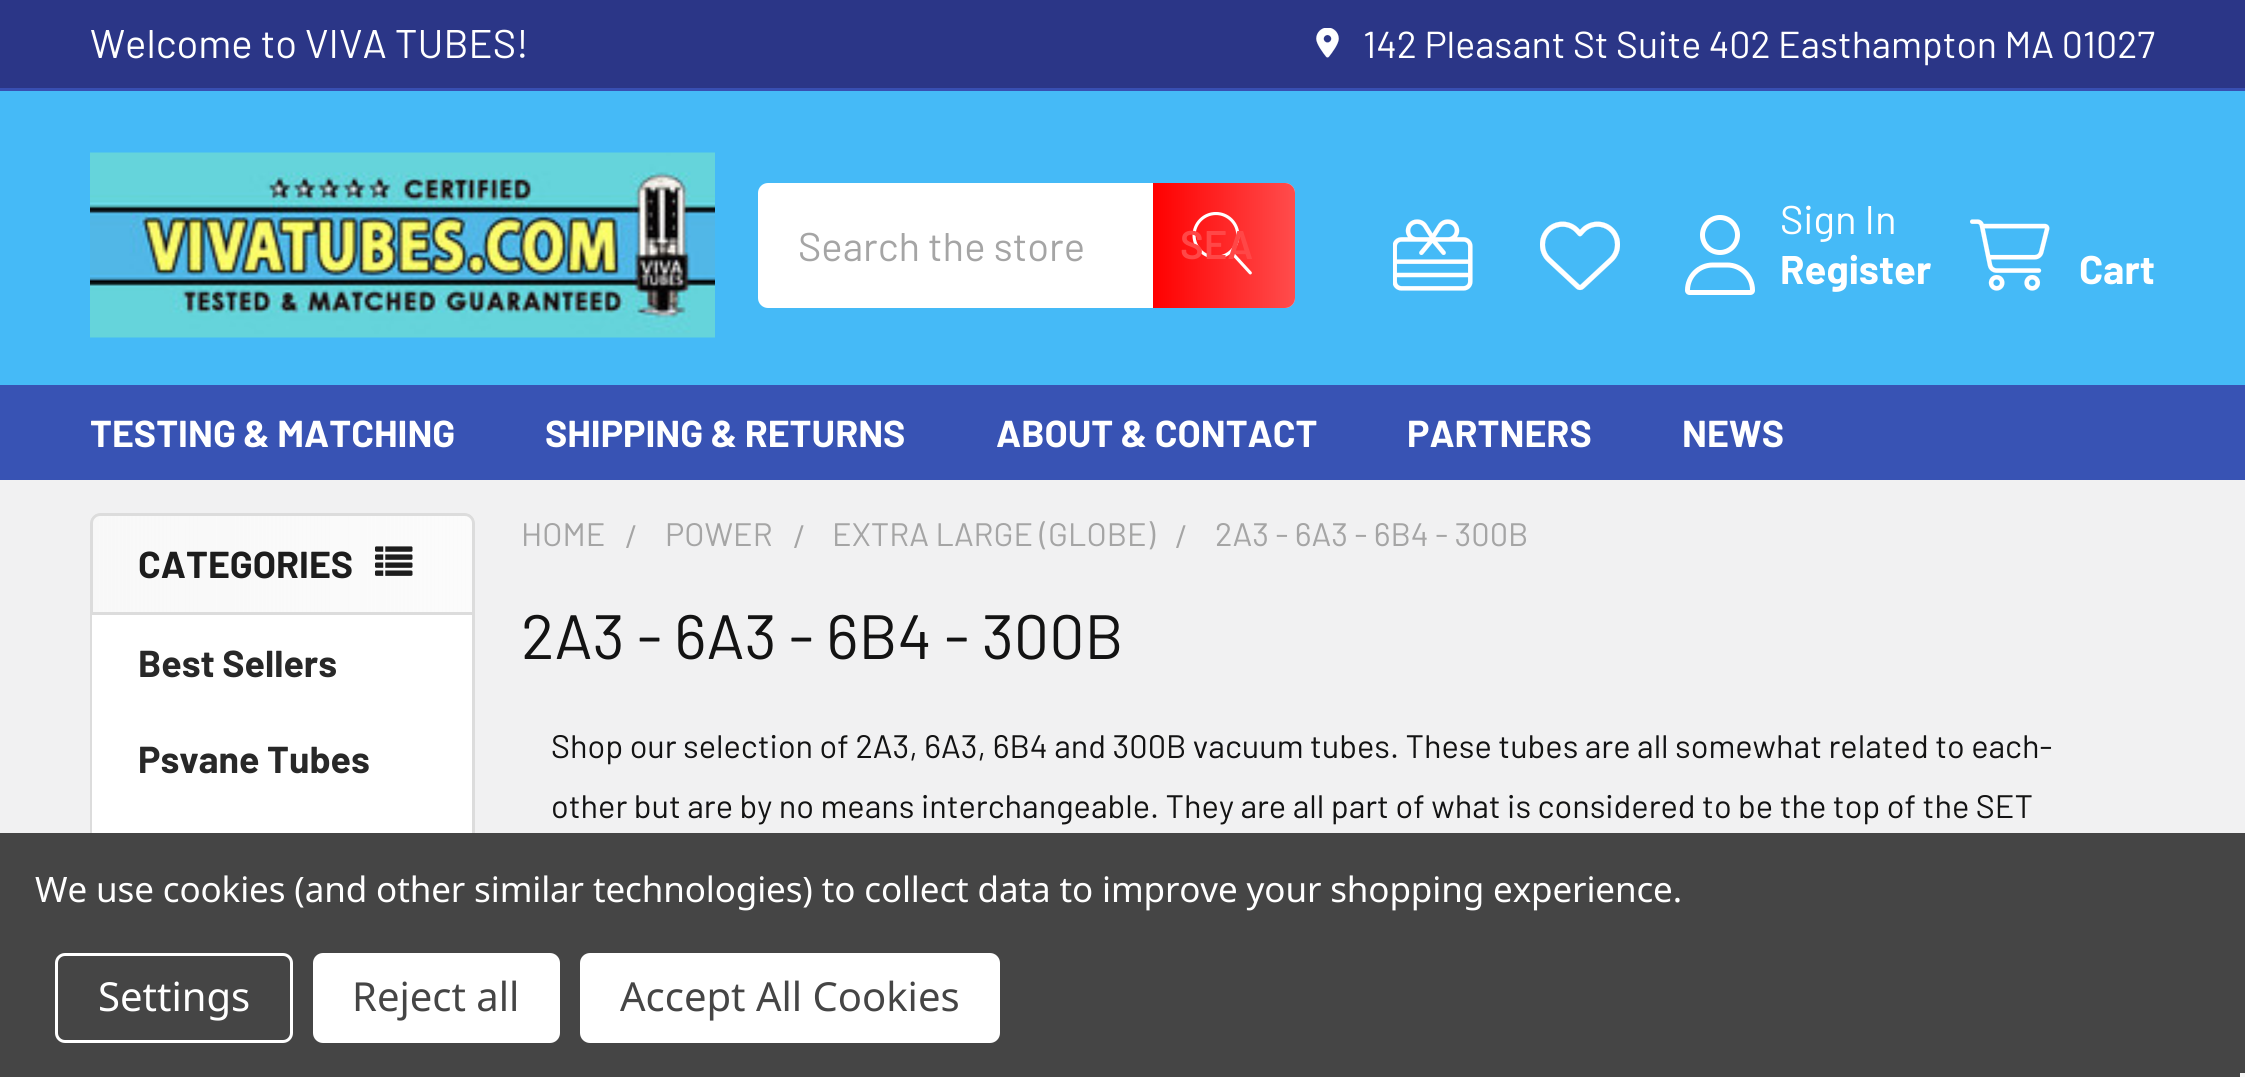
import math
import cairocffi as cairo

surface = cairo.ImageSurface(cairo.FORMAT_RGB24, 2245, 1077)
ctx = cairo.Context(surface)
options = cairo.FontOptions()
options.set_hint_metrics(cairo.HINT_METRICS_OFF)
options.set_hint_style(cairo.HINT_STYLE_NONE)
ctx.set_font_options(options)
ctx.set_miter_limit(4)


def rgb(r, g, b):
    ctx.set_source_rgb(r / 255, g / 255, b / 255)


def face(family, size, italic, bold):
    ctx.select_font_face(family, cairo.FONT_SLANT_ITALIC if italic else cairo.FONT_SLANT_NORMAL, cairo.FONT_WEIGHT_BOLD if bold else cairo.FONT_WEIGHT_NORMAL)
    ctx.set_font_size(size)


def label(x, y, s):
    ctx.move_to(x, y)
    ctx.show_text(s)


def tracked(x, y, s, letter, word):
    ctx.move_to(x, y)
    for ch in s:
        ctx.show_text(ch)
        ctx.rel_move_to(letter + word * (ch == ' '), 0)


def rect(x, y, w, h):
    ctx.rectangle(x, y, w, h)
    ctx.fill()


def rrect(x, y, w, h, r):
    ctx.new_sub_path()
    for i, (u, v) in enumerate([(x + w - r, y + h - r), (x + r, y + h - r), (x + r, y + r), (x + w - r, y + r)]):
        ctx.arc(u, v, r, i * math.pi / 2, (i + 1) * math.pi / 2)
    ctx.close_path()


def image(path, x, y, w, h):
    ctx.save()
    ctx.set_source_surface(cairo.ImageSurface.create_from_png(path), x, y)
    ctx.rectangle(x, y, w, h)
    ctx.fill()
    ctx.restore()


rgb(241, 241, 242)
ctx.paint()
rgb(69, 186, 247)
rect(0, 91, 2245, 294)
rgb(43, 54, 135)
rect(0, 0, 2245, 88)
rgb(56, 79, 178)
rect(0, 88, 2245, 3)
face('Barlow', 40, 0, 0)
rgb(255, 255, 255)
label(90, 58, 'Welcome to VIVA TUBES!')
image('image0.png', 1316, 28, 23, 30)
face('Barlow', 37.5, 0, 0)
label(1363, 58, '142 Pleasant St Suite 402 Easthampton MA 01027')
image('image1.png', 90, 152, 625, 186)
rrect(758, 183, 537, 125, 10)
ctx.fill()
gradient = cairo.LinearGradient(1153, 245, 1295, 245)
gradient.add_color_stop_rgba(0, 1, 0, 0, 1)
gradient.add_color_stop_rgba(1, 1, 0, 0, 0.7)
ctx.set_source(gradient)
ctx.new_path()
ctx.move_to(1153, 183)
ctx.line_to(1285, 183)
ctx.curve_to(1290.5, 183, 1295, 187.5, 1295, 193)
ctx.line_to(1295, 298)
ctx.curve_to(1295, 303.5, 1290.5, 308, 1285, 308)
ctx.line_to(1153, 308)
ctx.close_path()
ctx.fill()
image('image2.png', 1192, 212, 60, 63)
face('Barlow', 40, 0, 0)
rgb(165, 165, 165)
label(798, 261, 'Search the store')
face('Barlow SemiBold', 40, 0, 0)
rgb(255, 71, 71)
label(1180, 259, 'SEA')
image('image3.png', 1393, 219, 80, 72)
image('image4.png', 1540, 221, 80, 70)
image('image5.png', 1685, 215, 70, 80)
face('Barlow', 40, 0, 0)
rgb(255, 255, 255)
label(1780, 234, 'Sign In')
face('Barlow', 40, 0, 1)
label(1780, 284, 'Register')
image('image6.png', 1970, 219, 80, 72)
label(2079, 284, 'Cart')
rgb(56, 83, 180)
rect(0, 385, 2245, 95)
face('Barlow', 37.5, 0, 1)
rgb(255, 255, 255)
label(90, 447, 'TESTING & MATCHING')
label(545, 447, 'SHIPPING & RETURNS')
label(996, 447, 'ABOUT & CONTACT')
label(1407, 447, 'PARTNERS')
label(1682, 447, 'NEWS')
rrect(90, 513, 385, 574, 10)
ctx.fill()
gradient = cairo.LinearGradient(90, 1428, 475, 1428)
gradient.add_color_stop_rgba(0, 0.973, 0.973, 0.973, 1)
gradient.add_color_stop_rgba(1, 0.973, 0.973, 0.973, 0.6)
ctx.set_source(gradient)
rrect(90, 513, 385, 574, 10)
ctx.fill()
ctx.new_path()
ctx.move_to(100, 514.5)
ctx.line_to(465, 514.5)
ctx.curve_to(469.5, 514.5, 473.5, 518.5, 473.5, 523)
ctx.line_to(473.5, 613.5)
ctx.line_to(91.5, 613.5)
ctx.line_to(91.5, 523)
ctx.curve_to(91.5, 518.5, 95.5, 514.5, 100, 514.5)
ctx.close_path()
rgb(220, 220, 220)
ctx.set_line_width(3)
ctx.stroke()
rgb(29, 29, 29)
label(138, 578, 'CATEGORIES')
image('image7.png', 375, 546, 38, 30)
rgb(255, 255, 255)
rect(92, 615, 380, 218)
rgb(220, 220, 220)
ctx.set_fill_rule(cairo.FILL_RULE_EVEN_ODD)
ctx.new_path()
ctx.move_to(90, 615)
ctx.line_to(475, 615)
ctx.line_to(475, 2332)
ctx.curve_to(475, 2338, 471, 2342, 465, 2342)
ctx.line_to(100, 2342)
ctx.curve_to(94, 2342, 90, 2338, 90, 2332)
ctx.close_path()
ctx.move_to(92, 615)
ctx.line_to(472, 615)
ctx.line_to(472, 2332)
ctx.curve_to(472, 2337, 469, 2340, 465, 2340)
ctx.line_to(100, 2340)
ctx.curve_to(96, 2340, 92, 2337, 92, 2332)
ctx.close_path()
ctx.fill()
rgb(40, 40, 40)
label(138, 677, 'Best Sellers')
label(138, 773, 'Psvane Tubes')
face('Barlow', 32.5, 0, 0)
rgb(165, 165, 165)
label(521, 546, 'HOME')
label(625, 548, '/')
label(665, 546, 'POWER')
label(793, 548, '/')
label(832, 546, 'EXTRA LARGE (GLOBE)')
label(1175, 548, '/')
label(1215, 546, '2A3 - 6A3 - 6B4 - 300B')
face('Barlow', 62.5, 0, 0)
rgb(19, 19, 19)
label(521, 659, '2A3 - 6A3 - 6B4 - 300B')
face('Barlow', 32.5, 0, 0)
label(551, 758, 'Shop our selection of 2A3, 6A3, 6B4 and 300B vacuum tubes. These tubes are all somewhat related to each-')
label(551, 818, 'other but are by no means interchangeable. They are all part of what is considered to be the top of the SET')
rgb(69, 69, 69)
rect(0, 833, 2245, 244)
face('Noto Sans', 35, 0, 0)
rgb(255, 255, 255)
tracked(35, 902, 'We use cookies (and other similar technologies) to collect data to improve your shopping experience.', -0.12, 0)
rrect(56.5, 954.5, 235, 87, 8.5)
ctx.stroke()
face('Noto Sans', 40, 0, 0)
label(98, 1011, 'Settings')
rrect(313, 953, 247, 90, 10)
ctx.fill()
rgb(69, 69, 69)
label(352, 1011, 'Reject all')
rgb(255, 255, 255)
rrect(580, 953, 420, 90, 10)
ctx.fill()
rgb(69, 69, 69)
label(620, 1011, 'Accept All Cookies')
rgb(245, 245, 245)
rect(2240, 1073, 5, 4)
surface.write_to_png('render.png')
